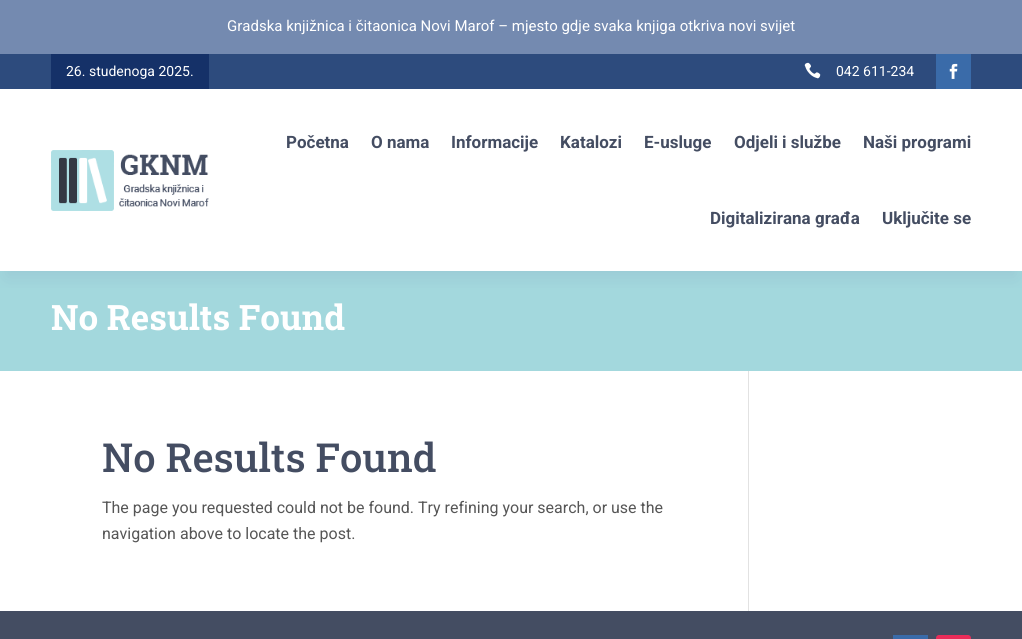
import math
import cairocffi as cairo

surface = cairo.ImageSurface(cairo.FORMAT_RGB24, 1022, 639)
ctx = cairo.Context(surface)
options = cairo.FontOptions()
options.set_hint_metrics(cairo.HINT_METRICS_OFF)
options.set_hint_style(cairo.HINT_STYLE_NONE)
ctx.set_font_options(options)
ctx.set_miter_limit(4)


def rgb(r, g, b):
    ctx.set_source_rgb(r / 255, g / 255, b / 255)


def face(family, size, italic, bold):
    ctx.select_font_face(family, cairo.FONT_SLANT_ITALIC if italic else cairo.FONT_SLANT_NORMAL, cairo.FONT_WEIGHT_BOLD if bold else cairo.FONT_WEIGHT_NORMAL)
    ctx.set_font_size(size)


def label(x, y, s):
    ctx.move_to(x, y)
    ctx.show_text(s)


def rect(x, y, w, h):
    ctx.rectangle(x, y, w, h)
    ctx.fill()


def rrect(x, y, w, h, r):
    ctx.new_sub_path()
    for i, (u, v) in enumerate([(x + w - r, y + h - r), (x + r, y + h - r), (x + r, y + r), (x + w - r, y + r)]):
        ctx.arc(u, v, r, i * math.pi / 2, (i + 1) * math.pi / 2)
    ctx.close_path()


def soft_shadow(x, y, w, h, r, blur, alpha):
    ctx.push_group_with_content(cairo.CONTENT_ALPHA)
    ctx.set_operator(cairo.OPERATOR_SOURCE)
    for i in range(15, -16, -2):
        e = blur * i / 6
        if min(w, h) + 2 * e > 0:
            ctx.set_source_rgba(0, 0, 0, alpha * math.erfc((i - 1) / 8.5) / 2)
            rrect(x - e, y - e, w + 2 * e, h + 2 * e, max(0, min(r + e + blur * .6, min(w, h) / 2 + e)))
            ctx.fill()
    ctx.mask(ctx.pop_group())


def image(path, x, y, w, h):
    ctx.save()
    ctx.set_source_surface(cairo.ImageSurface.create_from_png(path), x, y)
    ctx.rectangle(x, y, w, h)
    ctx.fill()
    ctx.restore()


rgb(255, 255, 255)
ctx.paint()
rgb(116, 138, 176)
rect(0, 0, 1022, 54)
face('Roboto', 15, 0, 0)
rgb(255, 255, 255)
label(227, 31, 'Gradska knjižnica i čitaonica Novi Marof – mjesto gdje svaka knjiga otkriva novi svijet')
rgb(45, 75, 125)
rect(0, 54, 1022, 35)
rgb(21, 49, 104)
rect(51, 54, 158, 35)
face('Roboto', 14, 0, 0)
rgb(255, 255, 255)
label(66, 76, '26. studenoga 2025.')
image('image0.png', 804, 62, 17, 17)
label(836, 76, '042 611-234')
rgb(58, 107, 169)
rect(936, 54, 35, 35)
image('image1.png', 949, 63, 9, 16)
rgb(163, 216, 221)
rect(0, 271, 1022, 100)
ctx.save()
ctx.rectangle(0, 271, 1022, 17)
ctx.clip()
rgb(116, 138, 176)
soft_shadow(6, 107, 1010, 170, 0, 9, 0.19)
ctx.restore()
image('image2.png', 51, 150, 158, 61)
face('Roboto', 17, 0, 1)
rgb(68, 77, 98)
label(286, 148, 'Početna')
label(371, 148, 'O nama')
label(451, 148, 'Informacije')
label(560, 148, 'Katalozi')
label(644, 148, 'E-usluge')
label(734, 148, 'Odjeli i službe')
label(863, 148, 'Naši programi')
label(710, 224, 'Digitalizirana građa')
label(882, 224, 'Uključite se')
face('Roboto Slab', 35, 0, 1)
rgb(255, 255, 255)
label(51, 330, 'No Results Found')
face('Roboto Slab Medium', 40, 0, 0)
rgb(68, 77, 98)
label(102, 472, 'No Results Found')
face('Roboto', 16, 0, 0)
rgb(86, 86, 86)
label(102, 513, 'The page you requested could not be found. Try refining your search, or use the')
label(102, 539, 'navigation above to locate the post.')
rgb(226, 226, 226)
rect(748, 371, 1, 240)
rgb(68, 77, 98)
rect(0, 611, 1022, 28)
rgb(58, 107, 169)
rect(893, 635, 35, 4)
rgb(234, 44, 89)
rrect(936, 635, 35, 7, 3)
ctx.fill()
surface.write_to_png('render.png')
